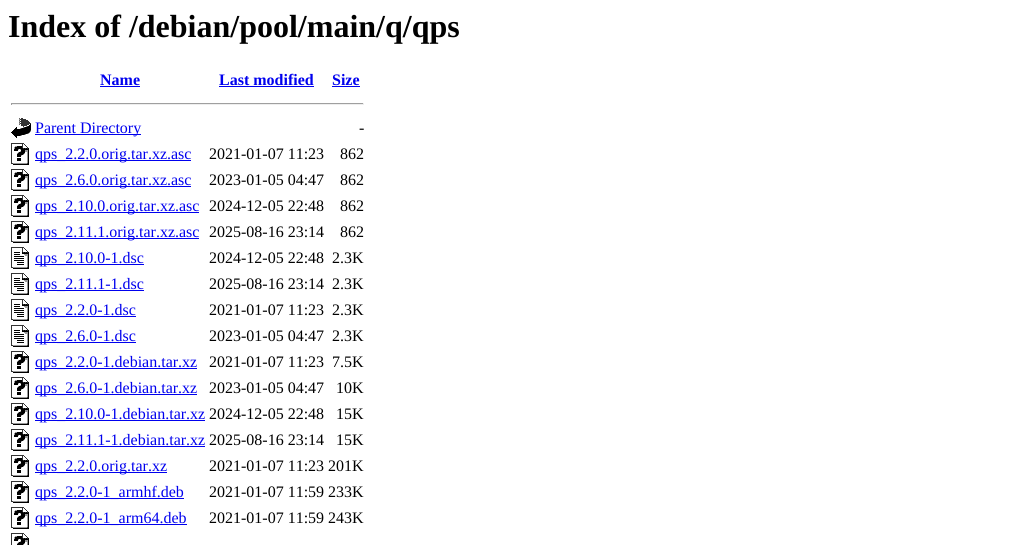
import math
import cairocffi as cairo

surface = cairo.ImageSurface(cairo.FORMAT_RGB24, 1009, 545)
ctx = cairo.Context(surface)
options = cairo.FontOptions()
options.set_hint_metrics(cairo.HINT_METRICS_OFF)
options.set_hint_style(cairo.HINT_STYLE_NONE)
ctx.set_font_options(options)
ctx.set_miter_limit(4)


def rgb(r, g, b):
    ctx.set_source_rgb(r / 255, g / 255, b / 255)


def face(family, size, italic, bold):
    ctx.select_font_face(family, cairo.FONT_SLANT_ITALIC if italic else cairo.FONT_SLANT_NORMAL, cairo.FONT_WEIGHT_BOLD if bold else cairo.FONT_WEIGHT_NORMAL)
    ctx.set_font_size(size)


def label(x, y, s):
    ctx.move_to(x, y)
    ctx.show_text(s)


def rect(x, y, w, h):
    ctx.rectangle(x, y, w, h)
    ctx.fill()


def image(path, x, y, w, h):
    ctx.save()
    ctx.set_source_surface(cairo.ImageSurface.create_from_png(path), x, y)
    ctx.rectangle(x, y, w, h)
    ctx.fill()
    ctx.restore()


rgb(255, 255, 255)
ctx.paint()
face('Liberation Serif', 32, 0, 1)
rgb(0, 0, 0)
label(8, 37, 'Index of /debian/pool/main/q/qps')
face('Liberation Serif', 16, 0, 1)
rgb(0, 0, 238)
label(100, 85, 'Name')
rect(100, 86, 40, 1)
label(219, 85, 'Last modified')
rect(219, 86, 95, 1)
label(332, 85, 'Size')
rect(332, 86, 28, 1)
rgb(159, 159, 159)
rect(11, 103, 353, 1)
rgb(238, 238, 238)
rect(363, 103, 1, 2)
rect(11, 104, 353, 1)
rgb(159, 159, 159)
rect(11, 103, 1, 2)
image('image0.png', 11, 118, 20, 20)
rgb(0, 0, 238)
rect(35, 134, 106, 1)
face('Liberation Serif', 16, 0, 0)
label(35, 133, 'Parent Directory')
rgb(0, 0, 0)
label(359, 133, '-')
image('image1.png', 11, 143, 18, 22)
rgb(0, 0, 238)
rect(35, 160, 156, 1)
label(35, 159, 'qps_2.2.0.orig.tar.xz.asc')
rgb(0, 0, 0)
label(209, 159, '2021-01-07 11:23')
label(340, 159, '862')
image('image1.png', 11, 169, 18, 22)
rgb(0, 0, 238)
rect(35, 186, 156, 1)
label(35, 185, 'qps_2.6.0.orig.tar.xz.asc')
rgb(0, 0, 0)
label(209, 185, '2023-01-05 04:47')
label(340, 185, '862')
image('image1.png', 11, 195, 18, 22)
rgb(0, 0, 238)
rect(35, 212, 164, 1)
label(35, 211, 'qps_2.10.0.orig.tar.xz.asc')
rgb(0, 0, 0)
label(209, 211, '2024-12-05 22:48')
label(340, 211, '862')
image('image1.png', 11, 221, 18, 22)
rgb(0, 0, 238)
rect(35, 238, 164, 1)
label(35, 237, 'qps_2.11.1.orig.tar.xz.asc')
rgb(0, 0, 0)
label(209, 237, '2025-08-16 23:14')
label(340, 237, '862')
image('image2.png', 11, 247, 18, 22)
rgb(0, 0, 238)
rect(35, 264, 109, 1)
label(35, 263, 'qps_2.10.0-1.dsc')
rgb(0, 0, 0)
label(209, 263, '2024-12-05 22:48')
label(332, 263, '2.3K')
image('image2.png', 11, 273, 18, 22)
rgb(0, 0, 238)
rect(35, 290, 109, 1)
label(35, 289, 'qps_2.11.1-1.dsc')
rgb(0, 0, 0)
label(209, 289, '2025-08-16 23:14')
label(332, 289, '2.3K')
image('image2.png', 11, 299, 18, 22)
rgb(0, 0, 238)
rect(35, 316, 101, 1)
label(35, 315, 'qps_2.2.0-1.dsc')
rgb(0, 0, 0)
label(209, 315, '2021-01-07 11:23')
label(332, 315, '2.3K')
image('image2.png', 11, 325, 18, 22)
rgb(0, 0, 238)
rect(35, 342, 101, 1)
label(35, 341, 'qps_2.6.0-1.dsc')
rgb(0, 0, 0)
label(209, 341, '2023-01-05 04:47')
label(332, 341, '2.3K')
image('image1.png', 11, 351, 18, 22)
rgb(0, 0, 238)
rect(35, 368, 162, 1)
label(35, 367, 'qps_2.2.0-1.debian.tar.xz')
rgb(0, 0, 0)
label(209, 367, '2021-01-07 11:23')
label(332, 367, '7.5K')
image('image1.png', 11, 377, 18, 22)
rgb(0, 0, 238)
rect(35, 394, 162, 1)
label(35, 393, 'qps_2.6.0-1.debian.tar.xz')
rgb(0, 0, 0)
label(209, 393, '2023-01-05 04:47')
label(336, 393, '10K')
image('image1.png', 11, 403, 18, 22)
rgb(0, 0, 238)
rect(35, 420, 170, 1)
label(35, 419, 'qps_2.10.0-1.debian.tar.xz')
rgb(0, 0, 0)
label(209, 419, '2024-12-05 22:48')
label(336, 419, '15K')
image('image1.png', 11, 429, 18, 22)
rgb(0, 0, 238)
rect(35, 446, 170, 1)
label(35, 445, 'qps_2.11.1-1.debian.tar.xz')
rgb(0, 0, 0)
label(209, 445, '2025-08-16 23:14')
label(336, 445, '15K')
image('image1.png', 11, 455, 18, 22)
rgb(0, 0, 238)
rect(35, 472, 132, 1)
label(35, 471, 'qps_2.2.0.orig.tar.xz')
rgb(0, 0, 0)
label(209, 471, '2021-01-07 11:23 201K')
image('image1.png', 11, 481, 18, 22)
rgb(0, 0, 238)
rect(35, 498, 149, 1)
label(35, 497, 'qps_2.2.0-1_armhf.deb')
rgb(0, 0, 0)
label(209, 497, '2021-01-07 11:59 233K')
image('image1.png', 11, 507, 18, 22)
rgb(0, 0, 238)
rect(35, 524, 152, 1)
label(35, 523, 'qps_2.2.0-1_arm64.deb')
rgb(0, 0, 0)
label(209, 523, '2021-01-07 11:59 243K')
image('image3.png', 11, 533, 18, 12)
surface.write_to_png('render.png')
